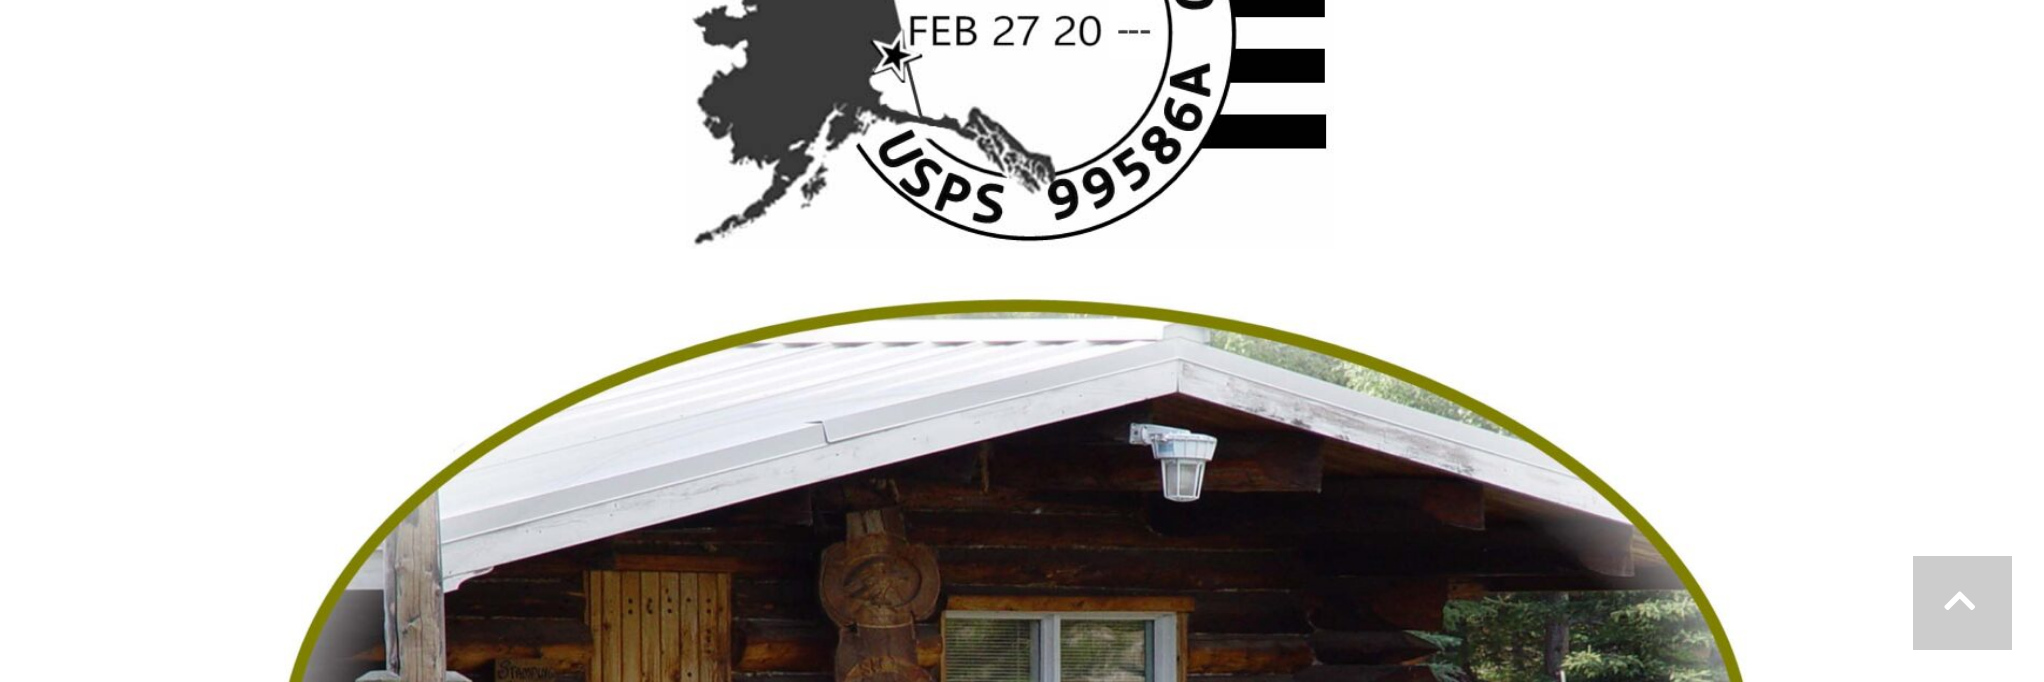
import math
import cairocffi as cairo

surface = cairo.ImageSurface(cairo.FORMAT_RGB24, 2044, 682)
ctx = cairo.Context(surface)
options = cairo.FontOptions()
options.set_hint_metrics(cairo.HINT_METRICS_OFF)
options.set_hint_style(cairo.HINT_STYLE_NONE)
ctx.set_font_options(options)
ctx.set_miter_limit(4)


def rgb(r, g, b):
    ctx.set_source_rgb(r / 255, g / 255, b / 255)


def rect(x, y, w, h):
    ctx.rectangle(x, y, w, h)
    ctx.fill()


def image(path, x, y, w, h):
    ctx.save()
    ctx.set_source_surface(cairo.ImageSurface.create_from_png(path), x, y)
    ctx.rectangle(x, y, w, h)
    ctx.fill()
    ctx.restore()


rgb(255, 255, 255)
ctx.paint()
image('image0.png', 686, 0, 648, 249)
image('image1.png', 284, 286, 1463, 396)
rgb(204, 204, 204)
rect(1913, 556, 99, 94)
image('image2.png', 1944, 591, 31, 19)
surface.write_to_png('render.png')
